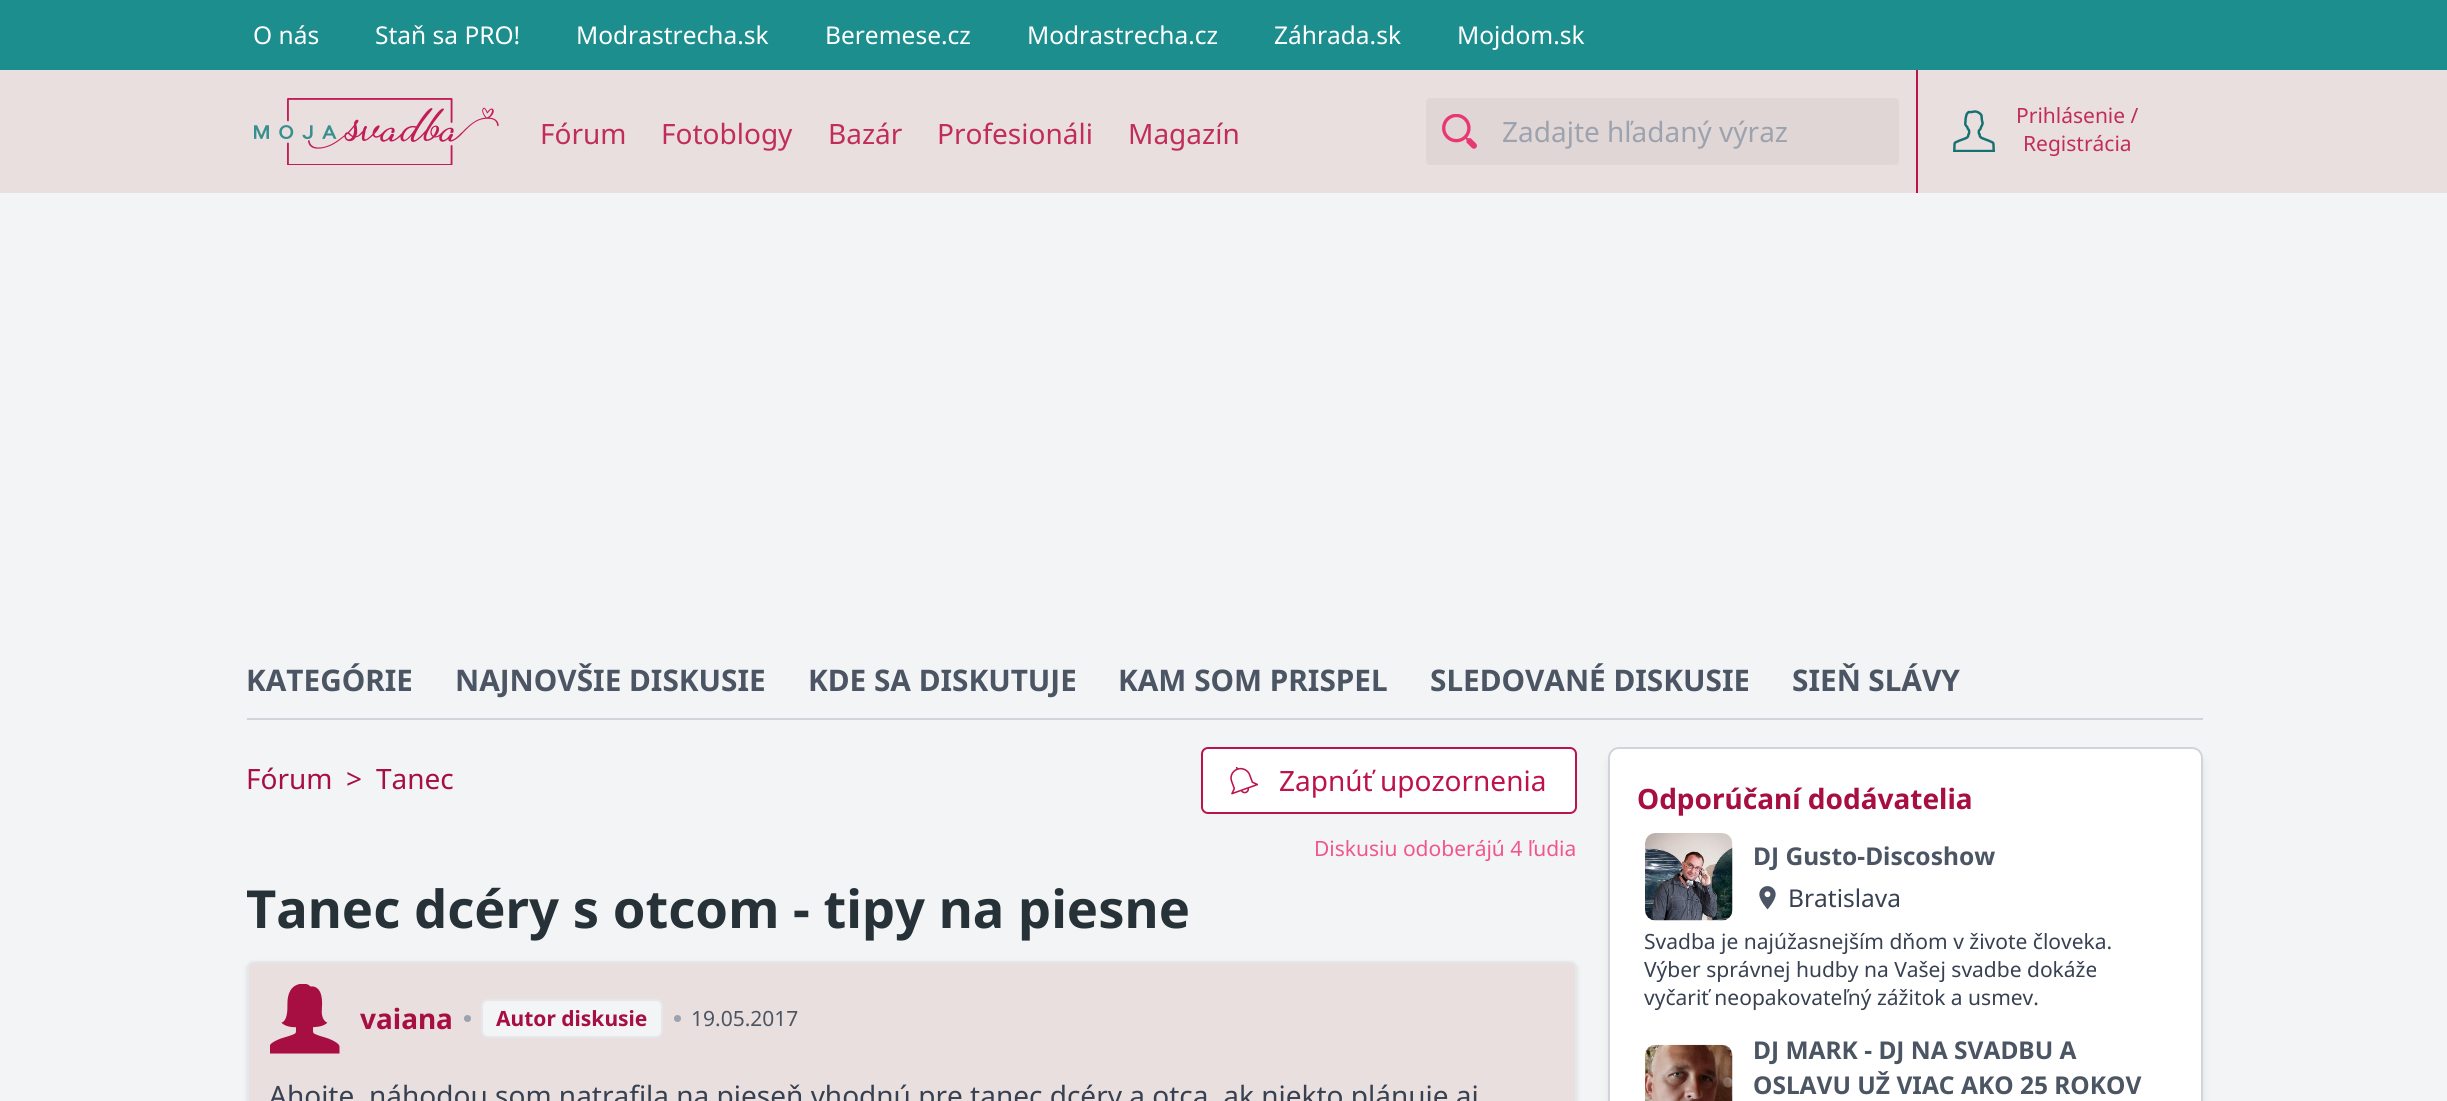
import math
import cairocffi as cairo

surface = cairo.ImageSurface(cairo.FORMAT_RGB24, 2447, 1101)
ctx = cairo.Context(surface)
options = cairo.FontOptions()
options.set_hint_metrics(cairo.HINT_METRICS_OFF)
options.set_hint_style(cairo.HINT_STYLE_NONE)
ctx.set_font_options(options)
ctx.set_miter_limit(4)


def rgb(r, g, b):
    ctx.set_source_rgb(r / 255, g / 255, b / 255)


def face(family, size, italic, bold):
    ctx.select_font_face(family, cairo.FONT_SLANT_ITALIC if italic else cairo.FONT_SLANT_NORMAL, cairo.FONT_WEIGHT_BOLD if bold else cairo.FONT_WEIGHT_NORMAL)
    ctx.set_font_size(size)


def label(x, y, s):
    ctx.move_to(x, y)
    ctx.show_text(s)


def rect(x, y, w, h):
    ctx.rectangle(x, y, w, h)
    ctx.fill()


def rrect(x, y, w, h, r):
    ctx.new_sub_path()
    for i, (u, v) in enumerate([(x + w - r, y + h - r), (x + r, y + h - r), (x + r, y + r), (x + w - r, y + r)]):
        ctx.arc(u, v, r, i * math.pi / 2, (i + 1) * math.pi / 2)
    ctx.close_path()


def soft_shadow(x, y, w, h, r, blur, alpha):
    ctx.push_group_with_content(cairo.CONTENT_ALPHA)
    ctx.set_operator(cairo.OPERATOR_SOURCE)
    for i in range(15, -16, -2):
        e = blur * i / 6
        if min(w, h) + 2 * e > 0:
            ctx.set_source_rgba(0, 0, 0, alpha * math.erfc((i - 1) / 8.5) / 2)
            rrect(x - e, y - e, w + 2 * e, h + 2 * e, max(0, min(r + e + blur * .6, min(w, h) / 2 + e)))
            ctx.fill()
    ctx.mask(ctx.pop_group())


def image(path, x, y, w, h):
    ctx.save()
    ctx.set_source_surface(cairo.ImageSurface.create_from_png(path), x, y)
    ctx.rectangle(x, y, w, h)
    ctx.fill()
    ctx.restore()


rgb(243, 244, 246)
ctx.paint()
rgb(29, 142, 142)
rect(0, 0, 2447, 70)
face('Noto Sans', 24.5, 0, 0)
rgb(255, 255, 255)
label(253, 44, 'O nás')
label(375, 44, 'Staň sa PRO!')
label(576, 44, 'Modrastrecha.sk')
label(825, 44, 'Beremese.cz')
label(1027, 44, 'Modrastrecha.cz')
label(1274, 44, 'Záhrada.sk')
label(1457, 44, 'Mojdom.sk')
rgb(234, 223, 223)
rect(0, 70, 2447, 123)
image('image0.png', 254, 98, 245, 67)
face('Noto Sans', 28, 0, 0)
rgb(193, 45, 90)
label(540, 144, 'Fórum')
label(661, 144, 'Fotoblogy')
label(828, 144, 'Bazár')
label(937, 144, 'Profesionáli')
label(1128, 144, 'Magazín')
rgb(225, 214, 214)
rrect(1426, 98, 473, 67, 4)
ctx.fill()
image('image1.png', 1442, 114, 35, 35)
rgb(156, 163, 175)
label(1502, 142, 'Zadajte hľadaný výraz')
rgb(189, 19, 77)
rect(1916, 70, 2, 123)
image('image2.png', 1953, 110, 42, 42)
face('Noto Sans', 21, 0, 0)
rgb(193, 45, 90)
label(2016, 123, 'Prihlásenie /')
label(2023, 151, 'Registrácia')
rgb(209, 213, 219)
rect(247, 718, 1956, 2)
face('Noto Sans', 29.75, 0, 1)
rgb(75, 85, 99)
label(246, 691, 'KATEGÓRIE')
label(455, 691, 'NAJNOVŠIE DISKUSIE')
label(808, 691, 'KDE SA DISKUTUJE')
label(1118, 691, 'KAM SOM PRISPEL')
label(1430, 691, 'SLEDOVANÉ DISKUSIE')
label(1792, 691, 'SIEŇ SLÁVY')
face('Noto Sans', 28, 0, 0)
rgb(167, 15, 67)
label(246, 789, 'Fórum')
label(346, 789, '>')
label(376, 789, 'Tanec')
rgb(255, 255, 255)
rrect(1202, 748, 374, 65, 6)
ctx.fill_preserve()
rgb(189, 19, 77)
ctx.stroke()
image('image3.png', 1230, 767, 28, 28)
label(1279, 791, 'Zapnúť upozornenia')
face('Noto Sans', 21, 0, 0)
rgb(241, 86, 139)
label(1314, 856, 'Diskusiu odoberájú 4 ľudia')
face('Noto Sans', 52.5, 0, 1)
rgb(38, 50, 56)
label(246, 928, 'Tanec dcéry s otcom - tipy na piesne')
rgb(0, 0, 0)
soft_shadow(247, 963, 1330, 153, 7, 2.5, 0.1)
rgb(234, 223, 223)
rrect(248, 962, 1328, 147, 6)
ctx.fill_preserve()
rgb(229, 231, 235)
ctx.stroke()
image('image4.png', 270, 984, 70, 70)
face('Noto Sans', 28, 0, 1)
rgb(167, 15, 67)
label(360, 1029, 'vaiana')
rgb(156, 163, 175)
ctx.new_path()
ctx.arc(467.5, 1018.5, 3.5, 0, 2 * math.pi)
ctx.fill()
rgb(243, 244, 246)
rrect(482, 1000, 180, 37, 6)
ctx.fill_preserve()
rgb(229, 231, 235)
ctx.stroke()
face('Noto Sans', 21, 0, 1)
rgb(167, 15, 67)
label(496, 1026, 'Autor diskusie')
rgb(156, 163, 175)
ctx.new_path()
ctx.arc(677.5, 1018.5, 3.5, 0, 2 * math.pi)
ctx.fill()
face('Noto Sans', 21, 0, 0)
rgb(75, 85, 99)
label(691, 1026, '19.05.2017')
face('Noto Sans', 28, 0, 0)
rgb(55, 65, 81)
label(269, 1106, 'Ahojte, náhodou som natrafila na pieseň vhodnú pre tanec dcéry a otca, ak niekto plánuje aj')
rgb(0, 0, 0)
soft_shadow(1610, 756, 592, 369, 9, 5, 0.1)
rgb(255, 255, 255)
rrect(1609, 748, 593, 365, 10)
ctx.fill_preserve()
rgb(209, 213, 219)
ctx.stroke()
face('Noto Sans', 28, 0, 1)
rgb(167, 15, 67)
label(1637, 809, 'Odporúčaní dodávatelia')
image('image5.png', 1645, 833, 88, 88)
face('Noto Sans', 24.5, 0, 1)
rgb(75, 85, 99)
label(1753, 865, 'DJ Gusto-Discoshow')
image('image6.png', 1759, 886, 17, 24)
face('Noto Sans', 24.5, 0, 0)
rgb(55, 65, 81)
label(1788, 907, 'Bratislava')
face('Noto Sans', 21, 0, 0)
label(1644, 949, 'Svadba je najúžasnejším dňom v živote človeka.')
label(1644, 977, 'Výber správnej hudby na Vašej svadbe dokáže')
label(1644, 1005, 'vyčariť neopakovateľný zážitok a usmev.')
image('image7.png', 1645, 1044, 88, 57)
face('Noto Sans', 24.5, 0, 1)
rgb(75, 85, 99)
label(1753, 1059, 'DJ MARK - DJ NA SVADBU A')
label(1753, 1094, 'OSLAVU UŽ VIAC AKO 25 ROKOV')
surface.write_to_png('render.png')
